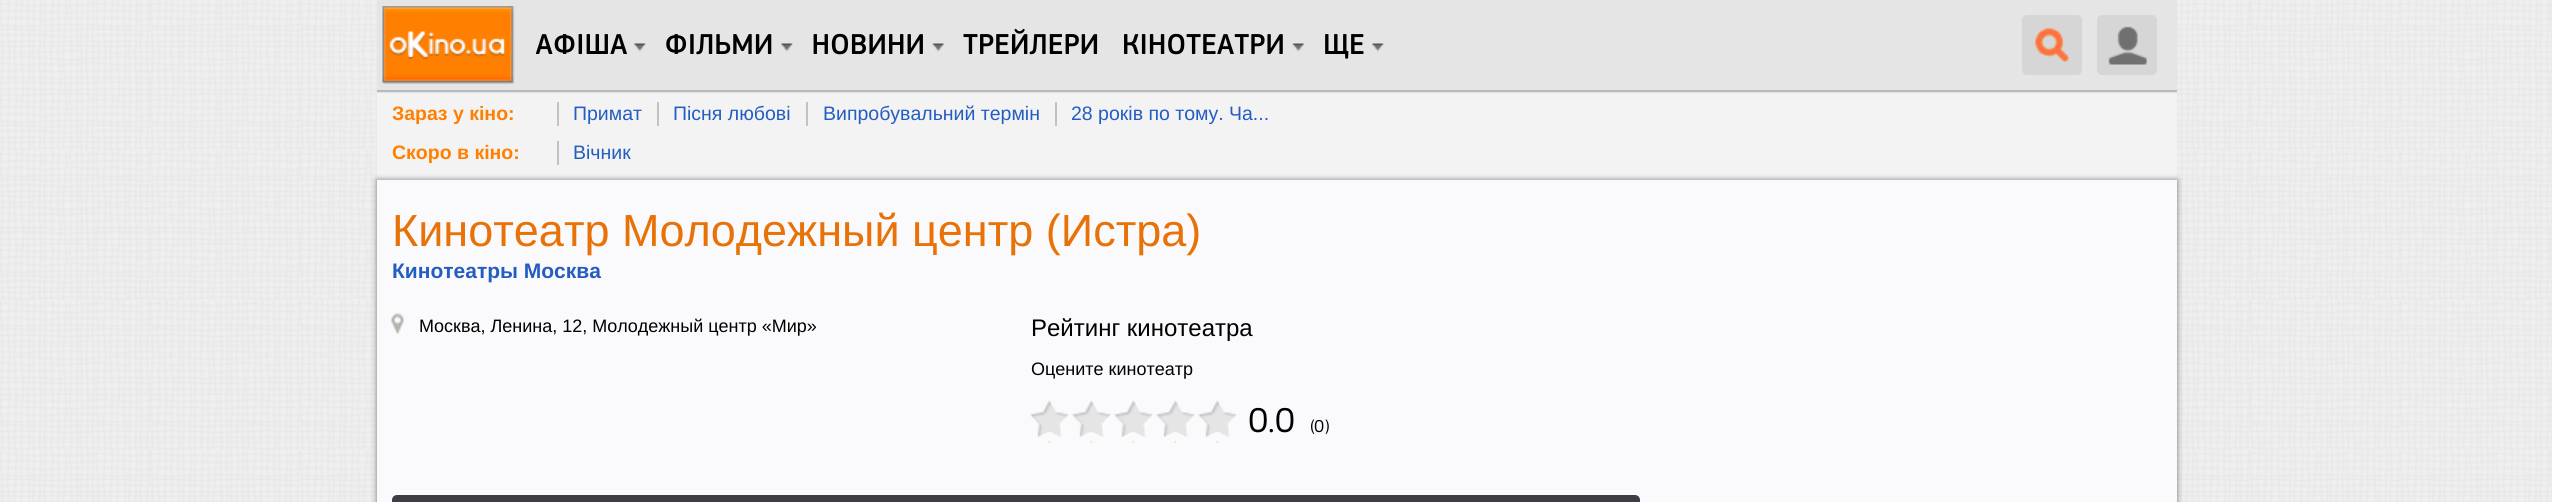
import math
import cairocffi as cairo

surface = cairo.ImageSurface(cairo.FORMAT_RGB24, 2552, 502)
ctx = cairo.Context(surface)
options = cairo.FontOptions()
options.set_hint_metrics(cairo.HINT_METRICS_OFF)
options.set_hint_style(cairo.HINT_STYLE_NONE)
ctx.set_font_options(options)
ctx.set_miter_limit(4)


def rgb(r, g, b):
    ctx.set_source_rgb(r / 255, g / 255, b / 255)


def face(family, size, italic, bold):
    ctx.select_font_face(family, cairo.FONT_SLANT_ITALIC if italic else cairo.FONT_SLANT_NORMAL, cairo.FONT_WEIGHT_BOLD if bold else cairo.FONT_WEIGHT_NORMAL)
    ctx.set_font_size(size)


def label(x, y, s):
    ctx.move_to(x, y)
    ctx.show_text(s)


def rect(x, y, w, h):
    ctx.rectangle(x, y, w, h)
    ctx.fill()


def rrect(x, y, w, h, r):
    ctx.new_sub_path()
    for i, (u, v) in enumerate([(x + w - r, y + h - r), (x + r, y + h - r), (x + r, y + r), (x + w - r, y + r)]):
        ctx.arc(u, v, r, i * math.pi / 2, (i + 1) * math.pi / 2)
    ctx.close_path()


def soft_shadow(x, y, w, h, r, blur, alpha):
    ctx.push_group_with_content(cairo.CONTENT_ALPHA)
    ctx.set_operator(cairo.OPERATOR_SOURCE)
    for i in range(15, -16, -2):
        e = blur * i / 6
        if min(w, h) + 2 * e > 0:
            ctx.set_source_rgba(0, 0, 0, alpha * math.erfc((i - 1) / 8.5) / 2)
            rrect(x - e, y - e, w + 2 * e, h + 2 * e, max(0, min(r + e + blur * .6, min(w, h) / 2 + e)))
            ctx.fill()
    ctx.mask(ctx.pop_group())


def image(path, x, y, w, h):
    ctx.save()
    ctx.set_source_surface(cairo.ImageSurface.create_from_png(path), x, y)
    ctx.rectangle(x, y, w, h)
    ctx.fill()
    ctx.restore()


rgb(255, 255, 255)
ctx.paint()
image('image0.png', 0, 0, 2552, 502)
rgb(243, 243, 243)
rect(377, 90, 1800, 90)
ctx.set_source_rgba(0, 0, 0, 0.07)
ctx.new_path()
ctx.move_to(377, 90)
ctx.line_to(377, 93)
ctx.line_to(2177, 93)
ctx.line_to(2177, 3)
ctx.line_to(2176, 3)
ctx.line_to(2176, 90)
ctx.close_path()
ctx.fill()
ctx.set_source_rgba(0, 0, 0, 0.18)
ctx.new_path()
ctx.move_to(377, 90)
ctx.line_to(377, 92)
ctx.line_to(2177, 92)
ctx.line_to(2177, 2)
ctx.line_to(2176, 2)
ctx.line_to(2176, 90)
ctx.close_path()
ctx.fill()
rgb(229, 229, 229)
rect(377, 0, 1800, 90)
image('image1.png', 382, 6, 133, 78)
image('image2.png', 634, 43, 12, 9)
image('image3.png', 535, 34, 92, 20)
image('image2.png', 781, 43, 12, 9)
image('image4.png', 666, 34, 106, 21)
image('image5.png', 932, 43, 12, 9)
image('image6.png', 813, 33, 110, 22)
image('image7.png', 963, 28, 135, 27)
image('image8.png', 1292, 43, 12, 9)
image('image9.png', 1124, 33, 159, 22)
image('image2.png', 1372, 43, 12, 9)
image('image10.png', 1325, 34, 39, 25)
rgb(214, 214, 215)
rrect(2023, 16, 58, 58, 4)
ctx.fill_preserve()
ctx.stroke()
image('image11.png', 2035, 28, 34, 34)
rrect(2097, 15, 60, 60, 5)
ctx.fill()
image('image12.png', 2108, 26, 39, 39)
face('Liberation Sans', 19.5, 0, 1)
rgb(255, 127, 0)
label(392, 120, 'Зараз у кіно:')
rgb(194, 194, 194)
rect(557, 102, 2, 24)
face('Liberation Sans', 19.5, 0, 0)
rgb(36, 93, 193)
label(573, 120, 'Примат')
rgb(194, 194, 194)
rect(657, 102, 2, 24)
rgb(36, 93, 193)
label(673, 120, 'Пісня любові')
rgb(194, 194, 194)
rect(806, 102, 2, 24)
rgb(36, 93, 193)
label(823, 120, 'Випробувальний термін')
rgb(194, 194, 194)
rect(1055, 102, 2, 24)
rgb(36, 93, 193)
label(1071, 120, '28 років по тому. Ча...')
face('Liberation Sans', 19.5, 0, 1)
rgb(255, 127, 0)
label(392, 159, 'Скоро в кіно:')
rgb(194, 194, 194)
rect(557, 141, 2, 24)
face('Liberation Sans', 19.5, 0, 0)
rgb(36, 93, 193)
label(573, 159, 'Вічник')
rgb(0, 0, 0)
soft_shadow(377, 180, 1800, 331, 0, 3, 0.5)
rgb(250, 250, 252)
rect(377, 180, 1800, 322)
face('Liberation Sans', 45, 0, 0)
rgb(232, 114, 8)
label(392, 246, 'Кинотеатр Молодежный центр (Истра)')
face('Liberation Sans', 21, 0, 1)
rgb(36, 93, 193)
label(392, 278, 'Кинотеатры Москва')
image('image13.png', 391, 313, 13, 22)
face('Liberation Sans', 18, 0, 0)
rgb(0, 0, 0)
label(419, 332, 'Москва, Ленина, 12, Молодежный центр «Мир»')
face('Liberation Sans', 24, 0, 0)
label(1031, 336, 'Рейтинг кинотеатра')
face('Liberation Sans', 18, 0, 0)
label(1031, 375, 'Оцените кинотеатр')
image('image14.png', 1030, 400, 207, 43)
image('image15.png', 1249, 407, 45, 26)
image('image16.png', 1311, 419, 4, 15)
image('image17.png', 1314, 419, 10, 14)
image('image18.png', 1325, 419, 4, 15)
rgb(62, 63, 68)
rrect(392, 495, 1248, 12, 5)
ctx.fill()
surface.write_to_png('render.png')
